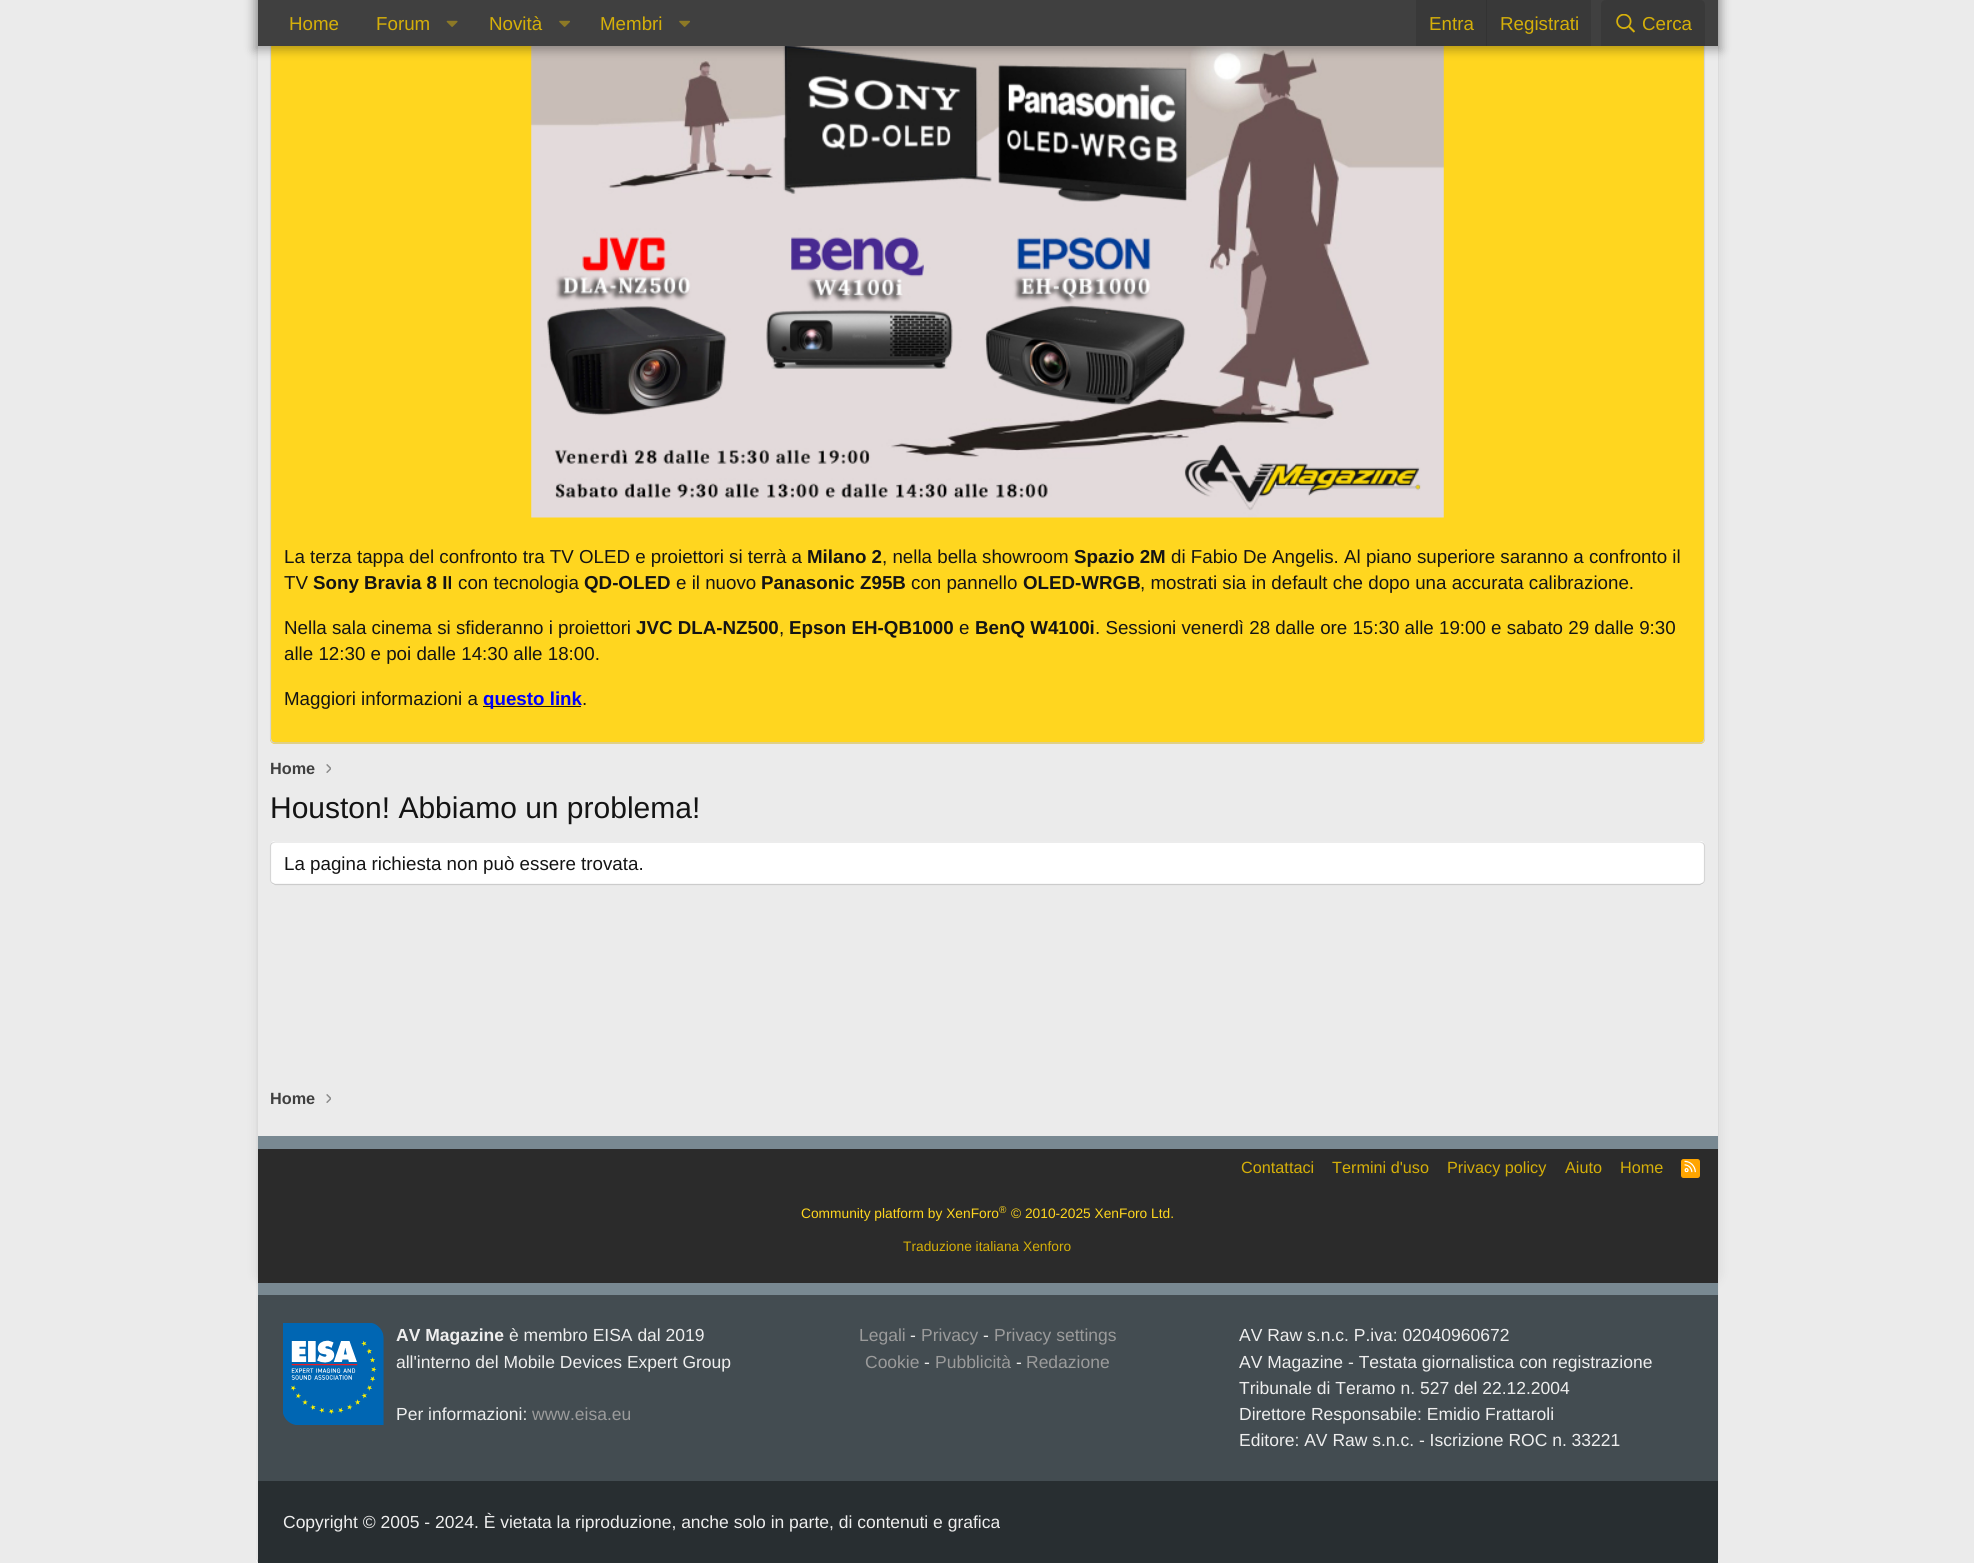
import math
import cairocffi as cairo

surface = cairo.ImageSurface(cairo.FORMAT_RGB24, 1974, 1563)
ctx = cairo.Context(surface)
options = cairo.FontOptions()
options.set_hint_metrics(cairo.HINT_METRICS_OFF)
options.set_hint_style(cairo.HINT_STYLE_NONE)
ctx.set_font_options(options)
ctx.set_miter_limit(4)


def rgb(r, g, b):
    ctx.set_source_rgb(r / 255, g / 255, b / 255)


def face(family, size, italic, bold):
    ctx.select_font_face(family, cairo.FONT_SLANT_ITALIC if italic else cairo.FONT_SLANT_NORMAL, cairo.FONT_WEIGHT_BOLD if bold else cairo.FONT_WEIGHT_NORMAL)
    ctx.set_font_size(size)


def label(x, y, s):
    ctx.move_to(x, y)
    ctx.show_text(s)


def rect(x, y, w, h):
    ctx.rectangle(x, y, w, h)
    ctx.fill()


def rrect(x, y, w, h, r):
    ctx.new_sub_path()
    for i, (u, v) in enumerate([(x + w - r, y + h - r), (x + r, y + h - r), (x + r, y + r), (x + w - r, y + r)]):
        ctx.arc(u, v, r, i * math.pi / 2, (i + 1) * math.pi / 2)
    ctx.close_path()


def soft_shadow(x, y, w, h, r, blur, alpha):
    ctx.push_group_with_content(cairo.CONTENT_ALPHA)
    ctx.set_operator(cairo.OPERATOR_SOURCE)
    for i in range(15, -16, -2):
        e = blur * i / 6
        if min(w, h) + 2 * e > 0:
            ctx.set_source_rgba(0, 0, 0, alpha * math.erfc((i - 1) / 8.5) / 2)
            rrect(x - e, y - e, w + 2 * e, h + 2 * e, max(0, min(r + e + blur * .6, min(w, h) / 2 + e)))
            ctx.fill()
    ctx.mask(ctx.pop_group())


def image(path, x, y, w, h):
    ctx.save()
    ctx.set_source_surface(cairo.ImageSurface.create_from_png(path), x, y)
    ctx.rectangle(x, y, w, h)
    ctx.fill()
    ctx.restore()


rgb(235, 235, 235)
ctx.paint()
rgb(255, 255, 255)
rrect(256, -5, 1463, 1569, 5)
ctx.fill()
ctx.new_path()
ctx.move_to(1717, -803)
ctx.line_to(1718, -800)
ctx.line_to(1718, 1559)
ctx.line_to(1717, 1562)
rgb(214, 214, 214)
ctx.set_line_width(1.2)
ctx.stroke()
ctx.new_path()
ctx.move_to(1717, 1562)
ctx.line_to(1714, 1563)
ctx.line_to(261, 1563)
ctx.line_to(258, 1562)
rgb(204, 204, 204)
ctx.stroke()
ctx.new_path()
ctx.move_to(258, 1562)
ctx.line_to(257, 1559)
ctx.line_to(257, -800)
ctx.line_to(258, -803)
rgb(214, 214, 214)
ctx.stroke()
rgb(0, 0, 0)
soft_shadow(258, -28, 1460, 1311, 10, 6, 0.1)
rgb(235, 235, 235)
rect(258, 46, 1460, 1090)
rgb(255, 214, 31)
rrect(270, -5, 1435, 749, 5)
ctx.fill()
ctx.new_path()
ctx.move_to(1703, -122)
ctx.line_to(1704.5, -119)
ctx.line_to(1704.5, 739)
ctx.line_to(1703, 742)
rgb(214, 214, 214)
ctx.stroke()
ctx.new_path()
ctx.move_to(1703, 742)
ctx.line_to(1700, 743)
ctx.line_to(275, 743)
ctx.line_to(272, 742)
rgb(204, 204, 204)
ctx.stroke()
ctx.new_path()
ctx.move_to(272, 742)
ctx.line_to(270.5, 739)
ctx.line_to(270.5, -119)
ctx.line_to(272, -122)
rgb(214, 214, 214)
ctx.stroke()
image('image3.png', 531, 46, 913, 472)
rgb(0, 0, 0)
soft_shadow(254, -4, 1467, 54, 0, 5, 0.3)
rgb(64, 64, 64)
rect(258, 0, 1460, 46)
face('Liberation Sans', 18.75, 0, 0)
rgb(213, 175, 9)
label(289, 30, 'Home')
label(376, 30, 'Forum')
image('image0.png', 446, 20, 12, 7)
label(489, 30, 'Novità')
image('image1.png', 559, 20, 11, 7)
label(600, 30, 'Membri')
image('image1.png', 679, 20, 11, 7)
rgb(57, 57, 57)
rect(1416, 0, 175, 46)
rgb(213, 175, 9)
label(1429, 30, 'Entra')
rgb(51, 51, 51)
rect(1486, 0, 1, 46)
rgb(213, 175, 9)
label(1500, 30, 'Registrati')
rgb(57, 57, 57)
ctx.new_path()
ctx.move_to(1606, 0)
ctx.line_to(1700, 0)
ctx.curve_to(1703, 0, 1705, 2, 1705, 5)
ctx.line_to(1705, 46)
ctx.line_to(1601, 46)
ctx.line_to(1601, 5)
ctx.curve_to(1601, 2, 1603, 0, 1606, 0)
ctx.close_path()
ctx.fill()
image('image2.png', 1616, 14, 19, 19)
rgb(213, 175, 9)
label(1642, 30, 'Cerca')
rgb(20, 20, 20)
label(284, 563, 'La terza tappa del confronto tra TV OLED e proiettori si terrà a')
face('Liberation Sans', 18.75, 0, 1)
label(807, 563, 'Milano 2')
face('Liberation Sans', 18.75, 0, 0)
label(882, 563, ', nella bella showroom')
face('Liberation Sans', 18.75, 0, 1)
label(1074, 563, 'Spazio 2M')
face('Liberation Sans', 18.75, 0, 0)
label(1171, 563, 'di Fabio De Angelis. Al piano superiore saranno a confronto il')
label(284, 589, 'TV')
face('Liberation Sans', 18.75, 0, 1)
label(313, 589, 'Sony Bravia 8 II')
face('Liberation Sans', 18.75, 0, 0)
label(458, 589, 'con tecnologia')
face('Liberation Sans', 18.75, 0, 1)
label(584, 589, 'QD-OLED')
face('Liberation Sans', 18.75, 0, 0)
label(676, 589, 'e il nuovo')
face('Liberation Sans', 18.75, 0, 1)
label(761, 589, 'Panasonic Z95B')
face('Liberation Sans', 18.75, 0, 0)
label(911, 589, 'con pannello')
face('Liberation Sans', 18.75, 0, 1)
label(1023, 589, 'OLED-WRGB')
face('Liberation Sans', 18.75, 0, 0)
label(1140, 589, ', mostrati sia in default che dopo una accurata calibrazione.')
label(284, 634, 'Nella sala cinema si sfideranno i proiettori')
face('Liberation Sans', 18.75, 0, 1)
label(636, 634, 'JVC DLA-NZ500')
face('Liberation Sans', 18.75, 0, 0)
label(779, 634, ',')
face('Liberation Sans', 18.75, 0, 1)
label(789, 634, 'Epson EH-QB1000')
face('Liberation Sans', 18.75, 0, 0)
label(959, 634, 'e')
face('Liberation Sans', 18.75, 0, 1)
label(975, 634, 'BenQ W4100i')
face('Liberation Sans', 18.75, 0, 0)
label(1095, 634, '. Sessioni venerdì 28 dalle ore 15:30 alle 19:00 e sabato 29 dalle 9:30')
label(284, 660, 'alle 12:30 e poi dalle 14:30 alle 18:00.')
label(284, 705, 'Maggiori informazioni a')
rect(483, 706, 98, 1)
face('Liberation Sans', 18.75, 0, 1)
rgb(0, 0, 255)
label(483, 705, 'questo link')
face('Liberation Sans', 18.75, 0, 0)
rgb(20, 20, 20)
label(582, 705, '.')
face('Liberation Sans', 16.25, 0, 1)
rgb(64, 64, 64)
label(270, 774, 'Home')
image('image4.png', 326, 764, 5, 9)
face('Liberation Sans', 30, 0, 0)
rgb(20, 20, 20)
label(270, 818, 'Houston! Abbiamo un problema!')
rgb(255, 255, 255)
rrect(270, 841, 1435, 44, 5)
ctx.fill()
ctx.new_path()
ctx.move_to(272, 843)
ctx.line_to(275, 842)
ctx.line_to(1700, 842)
ctx.line_to(1703, 843)
rgb(224, 224, 224)
ctx.stroke()
ctx.new_path()
ctx.move_to(1703, 843)
ctx.curve_to(1704, 844, 1704.5, 845, 1704.5, 846)
ctx.line_to(1704.5, 880)
ctx.curve_to(1704.5, 881, 1704, 882.5, 1703, 883)
rgb(214, 214, 214)
ctx.stroke()
ctx.new_path()
ctx.move_to(1703, 883)
ctx.line_to(1700, 884.5)
ctx.line_to(275, 884.5)
ctx.line_to(272, 883)
rgb(204, 204, 204)
ctx.stroke()
ctx.new_path()
ctx.move_to(272, 883)
ctx.curve_to(271, 882.5, 270.5, 881, 270.5, 880)
ctx.line_to(270.5, 846)
ctx.curve_to(270.5, 845, 271, 844, 272, 843)
rgb(214, 214, 214)
ctx.stroke()
face('Liberation Sans', 18.75, 0, 0)
rgb(20, 20, 20)
label(284, 870, 'La pagina richiesta non può essere trovata.')
face('Liberation Sans', 16.25, 0, 1)
rgb(64, 64, 64)
label(270, 1104, 'Home')
image('image4.png', 326, 1094, 5, 9)
rgb(43, 43, 43)
rect(258, 1149, 1460, 134)
rgb(121, 137, 146)
rect(258, 1136, 1460, 13)
face('Liberation Sans', 16.25, 0, 0)
rgb(213, 175, 9)
label(1241, 1173, 'Contattaci')
label(1332, 1173, 'Termini d\'uso')
label(1447, 1173, 'Privacy policy')
label(1565, 1173, 'Aiuto')
label(1620, 1173, 'Home')
rgb(255, 165, 0)
rrect(1681, 1159, 19, 19, 2.5)
ctx.fill()
image('image5.png', 1684, 1160, 12, 13)
face('Liberation Sans', 13.75, 0, 0)
rgb(255, 214, 31)
label(801, 1218, 'Community platform by XenForo')
face('Liberation Sans', 10, 0, 0)
label(999, 1213, '®')
face('Liberation Sans', 13.75, 0, 0)
label(1011, 1218, '© 2010-2025 XenForo Ltd.')
rgb(213, 175, 9)
label(903, 1251, 'Traduzione italiana Xenforo')
rgb(121, 137, 146)
rect(258, 1283, 1460, 12)
rgb(67, 76, 81)
rect(258, 1295, 1460, 186)
image('image6.png', 283, 1323, 101, 102)
face('Liberation Sans', 17.5, 0, 1)
rgb(238, 238, 238)
label(396, 1341, 'AV Magazine')
face('Liberation Sans', 17.5, 0, 0)
label(509, 1341, 'è membro EISA dal 2019')
label(396, 1368, 'all\'interno del Mobile Devices Expert Group')
label(396, 1420, 'Per informazioni:')
rgb(155, 155, 155)
label(532, 1420, 'www.eisa.eu')
label(859, 1341, 'Legali')
rgb(238, 238, 238)
label(910, 1341, '-')
rgb(155, 155, 155)
label(921, 1341, 'Privacy')
rgb(238, 238, 238)
label(983, 1341, '-')
rgb(155, 155, 155)
label(994, 1341, 'Privacy settings')
label(865, 1368, 'Cookie')
rgb(238, 238, 238)
label(924, 1368, '-')
rgb(155, 155, 155)
label(935, 1368, 'Pubblicità')
rgb(238, 238, 238)
label(1016, 1368, '-')
rgb(155, 155, 155)
label(1026, 1368, 'Redazione')
rgb(238, 238, 238)
label(1239, 1341, 'AV Raw s.n.c. P.iva: 02040960672')
label(1239, 1368, 'AV Magazine - Testata giornalistica con registrazione')
label(1239, 1394, 'Tribunale di Teramo n. 527 del 22.12.2004')
label(1239, 1420, 'Direttore Responsabile: Emidio Frattaroli')
label(1239, 1446, 'Editore: AV Raw s.n.c. - Iscrizione ROC n. 33221')
rgb(40, 46, 49)
rect(258, 1481, 1460, 82)
rgb(238, 238, 238)
label(283, 1528, 'Copyright © 2005 - 2024. È vietata la riproduzione, anche solo in parte, di contenuti e grafica')
surface.write_to_png('render.png')
